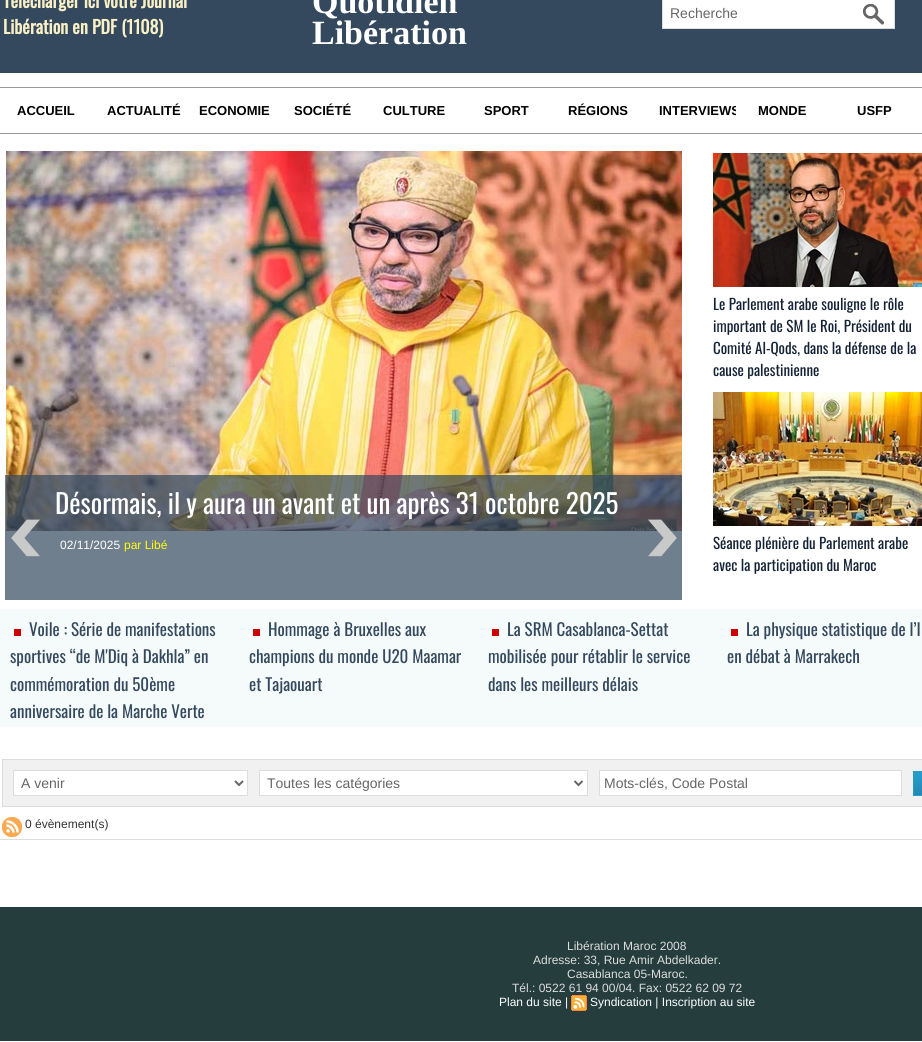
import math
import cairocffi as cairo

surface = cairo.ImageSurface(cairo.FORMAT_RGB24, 922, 1042)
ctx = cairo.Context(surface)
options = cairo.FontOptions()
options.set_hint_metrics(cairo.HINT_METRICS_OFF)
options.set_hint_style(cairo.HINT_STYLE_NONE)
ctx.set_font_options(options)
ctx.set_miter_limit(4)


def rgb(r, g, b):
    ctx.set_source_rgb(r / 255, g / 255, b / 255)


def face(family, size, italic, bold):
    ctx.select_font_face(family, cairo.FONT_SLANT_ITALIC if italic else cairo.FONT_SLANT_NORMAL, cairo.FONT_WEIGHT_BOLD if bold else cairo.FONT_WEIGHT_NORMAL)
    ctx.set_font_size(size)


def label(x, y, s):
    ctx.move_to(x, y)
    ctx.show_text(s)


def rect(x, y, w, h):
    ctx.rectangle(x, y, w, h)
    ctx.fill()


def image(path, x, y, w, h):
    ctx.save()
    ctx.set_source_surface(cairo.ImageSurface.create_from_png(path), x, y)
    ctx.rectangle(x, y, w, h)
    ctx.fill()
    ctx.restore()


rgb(255, 255, 255)
ctx.paint()
rgb(52, 73, 94)
rect(0, 0, 922, 73)
face('Oswald', 18, 0, 1)
rgb(250, 240, 197)
label(3, 8, 'Télécharger ici votre Journal')
label(3, 34, 'Libération en PDF (1108)')
face('Liberation Serif', 34, 0, 1)
rgb(255, 255, 255)
label(312, 13, 'Quotidien')
label(312, 44, 'Libération')
rect(663, 0, 231, 28)
image('image0.png', 863, 4, 21, 21)
ctx.rectangle(662.5, -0.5, 232, 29)
rgb(221, 221, 221)
ctx.set_line_width(1)
ctx.stroke()
face('Liberation Sans', 14, 0, 0)
rgb(102, 102, 102)
label(670, 18, 'Recherche')
rgb(153, 153, 153)
rect(0, 87, 922, 1)
rect(0, 133, 922, 1)
face('Liberation Sans', 13, 0, 1)
rgb(0, 0, 0)
label(17, 115, 'ACCUEIL')
label(107, 115, 'ACTUALITÉ')
label(199, 115, 'ECONOMIE')
label(294, 115, 'SOCIÉTÉ')
label(383, 115, 'CULTURE')
label(484, 115, 'SPORT')
label(568, 115, 'RÉGIONS')
label(659, 115, 'INTERVIEWS')
rgb(255, 255, 255)
rect(736, 105, 4, 11)
rgb(0, 0, 0)
label(758, 115, 'MONDE')
label(857, 115, 'USFP')
image('image1.png', 6, 151, 676, 380)
ctx.set_source_rgba(0.204, 0.286, 0.369, 0.7)
rect(5, 475, 677, 125)
image('image2.png', 11, 519, 29, 38)
face('Oswald', 27, 0, 0)
rgb(255, 255, 255)
label(55, 514, 'Désormais, il y aura un avant et un après 31 octobre 2025')
face('Liberation Sans', 12, 0, 0)
label(60, 549, '02/11/2025')
rgb(255, 255, 8)
label(124, 549, 'par Libé')
image('image3.png', 648, 519, 29, 38)
image('image4.png', 713, 153, 209, 134)
face('Oswald', 15, 0, 0)
rgb(20, 34, 54)
label(713, 310, 'Le Parlement arabe souligne le rôle')
label(713, 332, 'important de SM le Roi, Président du')
label(713, 354, 'Comité Al-Qods, dans la défense de la')
label(713, 376, 'cause palestinienne')
image('image5.png', 713, 392, 209, 134)
label(713, 549, 'Séance plénière du Parlement arabe')
label(713, 571, 'avec la participation du Maroc')
rgb(245, 250, 250)
rect(0, 609, 922, 118)
rgb(204, 0, 0)
rect(14, 629, 7, 7)
face('Oswald', 17, 0, 0)
rgb(52, 73, 94)
label(29, 636, 'Voile : Série de manifestations')
label(10, 663, 'sportives “de M\'Diq à Dakhla” en')
label(10, 691, 'commémoration du 50ème')
label(10, 718, 'anniversaire de la Marche Verte')
rgb(204, 0, 0)
rect(253, 629, 7, 7)
rgb(52, 73, 94)
label(268, 636, 'Hommage à Bruxelles aux')
label(249, 663, 'champions du monde U20 Maamar')
label(249, 691, 'et Tajaouart')
rgb(204, 0, 0)
rect(492, 629, 7, 7)
rgb(52, 73, 94)
label(507, 636, 'La SRM Casablanca-Settat')
label(488, 663, 'mobilisée pour rétablir le service')
label(488, 691, 'dans les meilleurs délais')
rgb(204, 0, 0)
rect(731, 629, 7, 7)
rgb(52, 73, 94)
label(746, 636, 'La physique statistique de l’I')
label(727, 663, 'en débat à Marrakech')
rgb(221, 221, 221)
rect(0, 839, 922, 1)
rgb(241, 241, 241)
ctx.rectangle(2.5, 759.5, 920, 47)
ctx.fill_preserve()
rgb(221, 221, 221)
ctx.stroke()
rgb(255, 255, 255)
ctx.rectangle(13.5, 770.5, 234, 25)
ctx.fill_preserve()
rgb(221, 221, 221)
ctx.stroke()
ctx.new_path()
ctx.move_to(235, 781)
ctx.line_to(239, 785)
ctx.line_to(243, 781)
rgb(102, 102, 102)
ctx.set_line_width(2)
ctx.stroke()
face('Liberation Sans', 14, 0, 0)
label(21, 788, 'A venir')
rgb(255, 255, 255)
ctx.rectangle(259.5, 770.5, 328, 25)
ctx.fill_preserve()
rgb(221, 221, 221)
ctx.set_line_width(1)
ctx.stroke()
ctx.new_path()
ctx.move_to(574.5, 781)
ctx.line_to(578.5, 785)
ctx.line_to(582.5, 781)
rgb(102, 102, 102)
ctx.set_line_width(2)
ctx.stroke()
label(267, 788, 'Toutes les catégories')
rgb(255, 255, 255)
ctx.rectangle(599.5, 770.5, 302, 25)
ctx.fill_preserve()
rgb(221, 221, 221)
ctx.set_line_width(1)
ctx.stroke()
rgb(102, 102, 102)
label(604, 788, 'Mots-clés, Code Postal')
rgb(38, 155, 201)
rect(914, 772, 8, 23)
image('image6.png', 914, 779, 8, 16)
ctx.rectangle(913.5, 771.5, 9, 24)
ctx.stroke()
image('image7.png', 2, 817, 20, 20)
face('Liberation Sans', 12, 0, 0)
rgb(51, 51, 51)
label(25, 828, '0 évènement(s)')
rgb(37, 61, 61)
rect(0, 907, 922, 134)
rgb(221, 221, 221)
label(567, 950, 'Libération Maroc 2008')
label(533, 964, 'Adresse: 33, Rue Amir Abdelkader.')
label(567, 978, 'Casablanca 05-Maroc.')
label(512, 992, 'Tél.: 0522 61 94 00/04. Fax: 0522 62 09 72')
rgb(255, 255, 255)
label(499, 1006, 'Plan du site |')
image('image8.png', 571, 995, 16, 16)
label(590, 1006, 'Syndication | Inscription au site')
surface.write_to_png('render.png')
